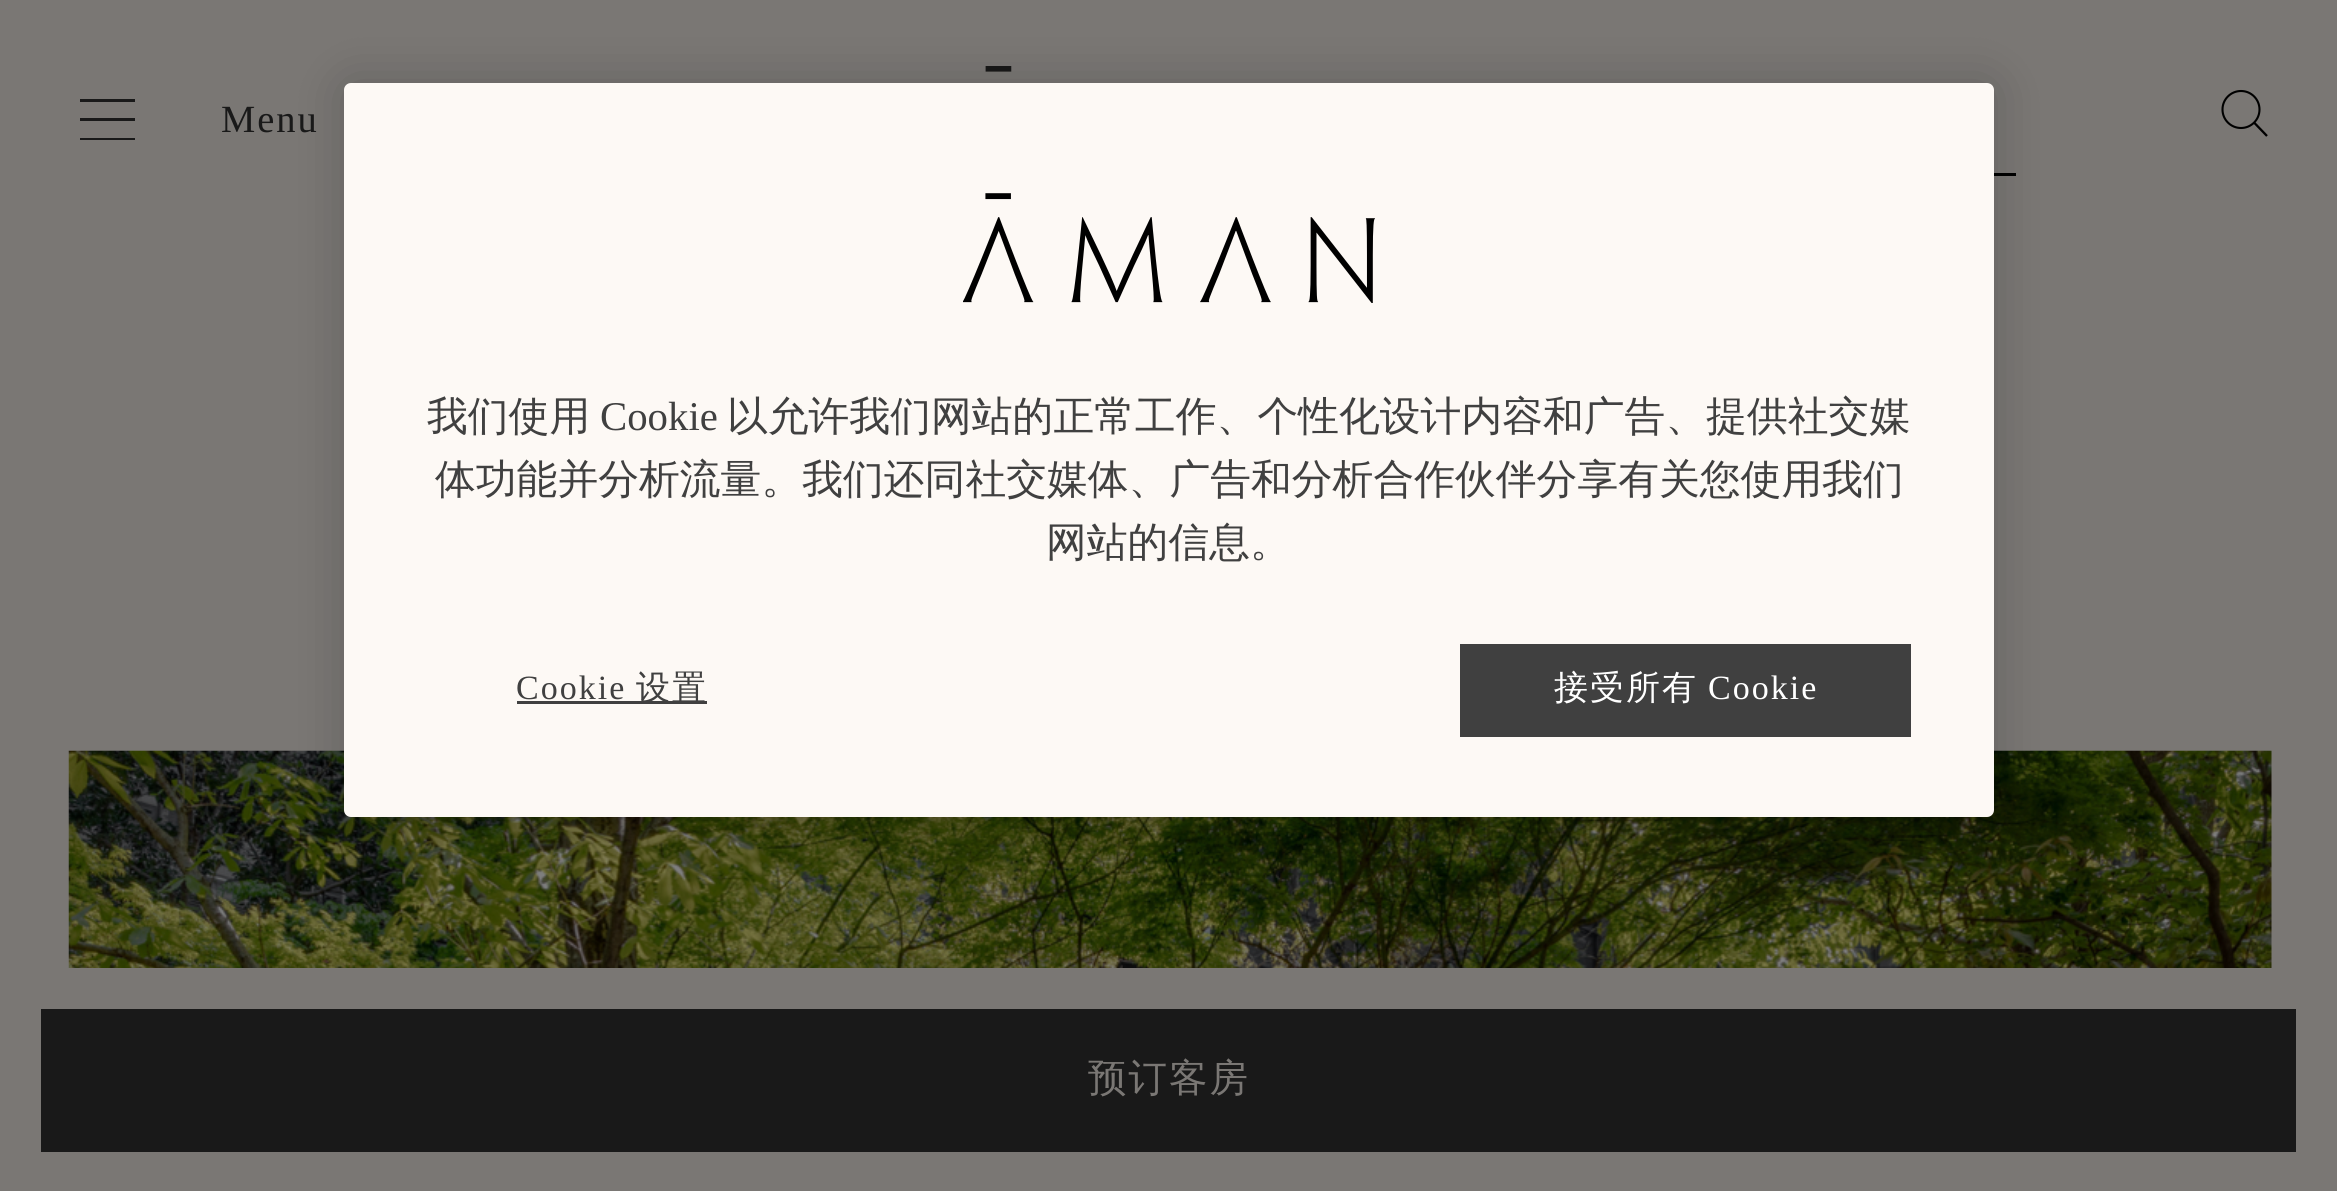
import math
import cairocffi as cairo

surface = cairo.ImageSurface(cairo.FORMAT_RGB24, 2337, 1191)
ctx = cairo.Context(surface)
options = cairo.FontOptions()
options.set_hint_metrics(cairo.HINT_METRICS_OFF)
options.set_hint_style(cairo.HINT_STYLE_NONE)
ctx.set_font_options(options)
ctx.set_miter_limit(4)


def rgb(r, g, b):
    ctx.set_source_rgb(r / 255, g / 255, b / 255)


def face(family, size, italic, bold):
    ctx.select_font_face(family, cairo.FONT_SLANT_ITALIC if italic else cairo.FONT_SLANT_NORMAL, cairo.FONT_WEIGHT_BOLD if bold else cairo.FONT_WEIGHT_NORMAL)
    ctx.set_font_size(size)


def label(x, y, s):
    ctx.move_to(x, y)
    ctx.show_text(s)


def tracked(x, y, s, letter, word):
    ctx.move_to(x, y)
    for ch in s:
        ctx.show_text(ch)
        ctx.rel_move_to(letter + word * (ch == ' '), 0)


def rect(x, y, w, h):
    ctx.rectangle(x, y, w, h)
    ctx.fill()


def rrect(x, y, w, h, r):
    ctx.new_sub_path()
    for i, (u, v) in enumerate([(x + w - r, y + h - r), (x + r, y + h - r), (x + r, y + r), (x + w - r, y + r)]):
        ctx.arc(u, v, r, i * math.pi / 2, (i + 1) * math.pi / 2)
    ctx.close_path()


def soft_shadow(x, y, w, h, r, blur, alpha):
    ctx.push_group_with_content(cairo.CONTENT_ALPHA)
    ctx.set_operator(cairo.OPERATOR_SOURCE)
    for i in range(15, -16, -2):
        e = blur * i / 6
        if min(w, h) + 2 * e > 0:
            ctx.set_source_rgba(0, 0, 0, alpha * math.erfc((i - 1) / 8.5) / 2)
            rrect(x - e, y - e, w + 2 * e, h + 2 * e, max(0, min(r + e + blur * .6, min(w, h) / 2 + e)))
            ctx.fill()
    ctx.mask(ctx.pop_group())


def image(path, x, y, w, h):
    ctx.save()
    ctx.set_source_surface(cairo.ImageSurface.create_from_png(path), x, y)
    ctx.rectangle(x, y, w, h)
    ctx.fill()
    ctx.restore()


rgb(122, 119, 116)
ctx.paint()
image('image0.png', 985, 66, 27, 6)
rgb(25, 25, 25)
ctx.new_path()
ctx.move_to(80, 99)
ctx.line_to(135, 99)
ctx.line_to(135, 102)
ctx.line_to(80, 102)
ctx.close_path()
ctx.move_to(80, 118)
ctx.line_to(135, 118)
ctx.line_to(135, 121)
ctx.line_to(80, 121)
ctx.close_path()
ctx.move_to(80, 138)
ctx.line_to(135, 138)
ctx.line_to(135, 140)
ctx.line_to(80, 140)
ctx.close_path()
ctx.fill()
face('Liberation Serif', 38.5, 0, 0)
tracked(221, 132, 'Menu', 2, 0)
ctx.new_path()
ctx.arc(2241, 109.5, 18.5, 0, 2 * math.pi)
rgb(0, 0, 0)
ctx.set_line_width(2.1)
ctx.stroke()
ctx.new_path()
ctx.move_to(2254, 122.5)
ctx.line_to(2267, 136)
ctx.set_line_width(2.3)
ctx.stroke()
rect(1994, 173, 22, 3)
rgb(25, 25, 25)
rect(41, 1009, 2255, 143)
face('WenQuanYi Zen Hei Medium', 38.5, 0, 0)
rgb(122, 119, 116)
tracked(1088, 1091, '预订客房', 2, 0)
image('image1.png', 68, 750, 2204, 218)
rgb(0, 0, 0)
soft_shadow(344, 83, 1650, 734, 7, 25, 0.2)
rgb(253, 249, 245)
rrect(344, 83, 1650, 734, 7)
ctx.fill()
image('image2.png', 963, 193, 412, 110)
face('WenQuanYi Zen Hei Medium', 40.8, 0, 0)
rgb(64, 64, 64)
label(427, 430, '我们使用')
face('Liberation Serif', 40.8, 0, 0)
label(600, 430, 'Cookie')
face('WenQuanYi Zen Hei Medium', 40.8, 0, 0)
label(727, 430, '以允许我们网站的正常工作、个性化设计内容和广告、提供社交媒')
label(435, 493, '体功能并分析流量。我们还同社交媒体、广告和分析合作伙伴分享有关您使用我们')
label(1046, 556, '网站的信息。')
face('Liberation Serif', 34, 0, 0)
tracked(516, 699, 'Cookie', 2, 0)
rect(517, 701, 190, 3)
face('WenQuanYi Zen Hei Medium', 34, 0, 0)
tracked(636, 699, '设置', 2, 0)
rect(1460, 644, 451, 93)
rgb(255, 255, 255)
tracked(1554, 699, '接受所有', 2, 0)
face('Liberation Serif', 34, 0, 0)
tracked(1708, 699, 'Cookie', 2, 0)
surface.write_to_png('render.png')
